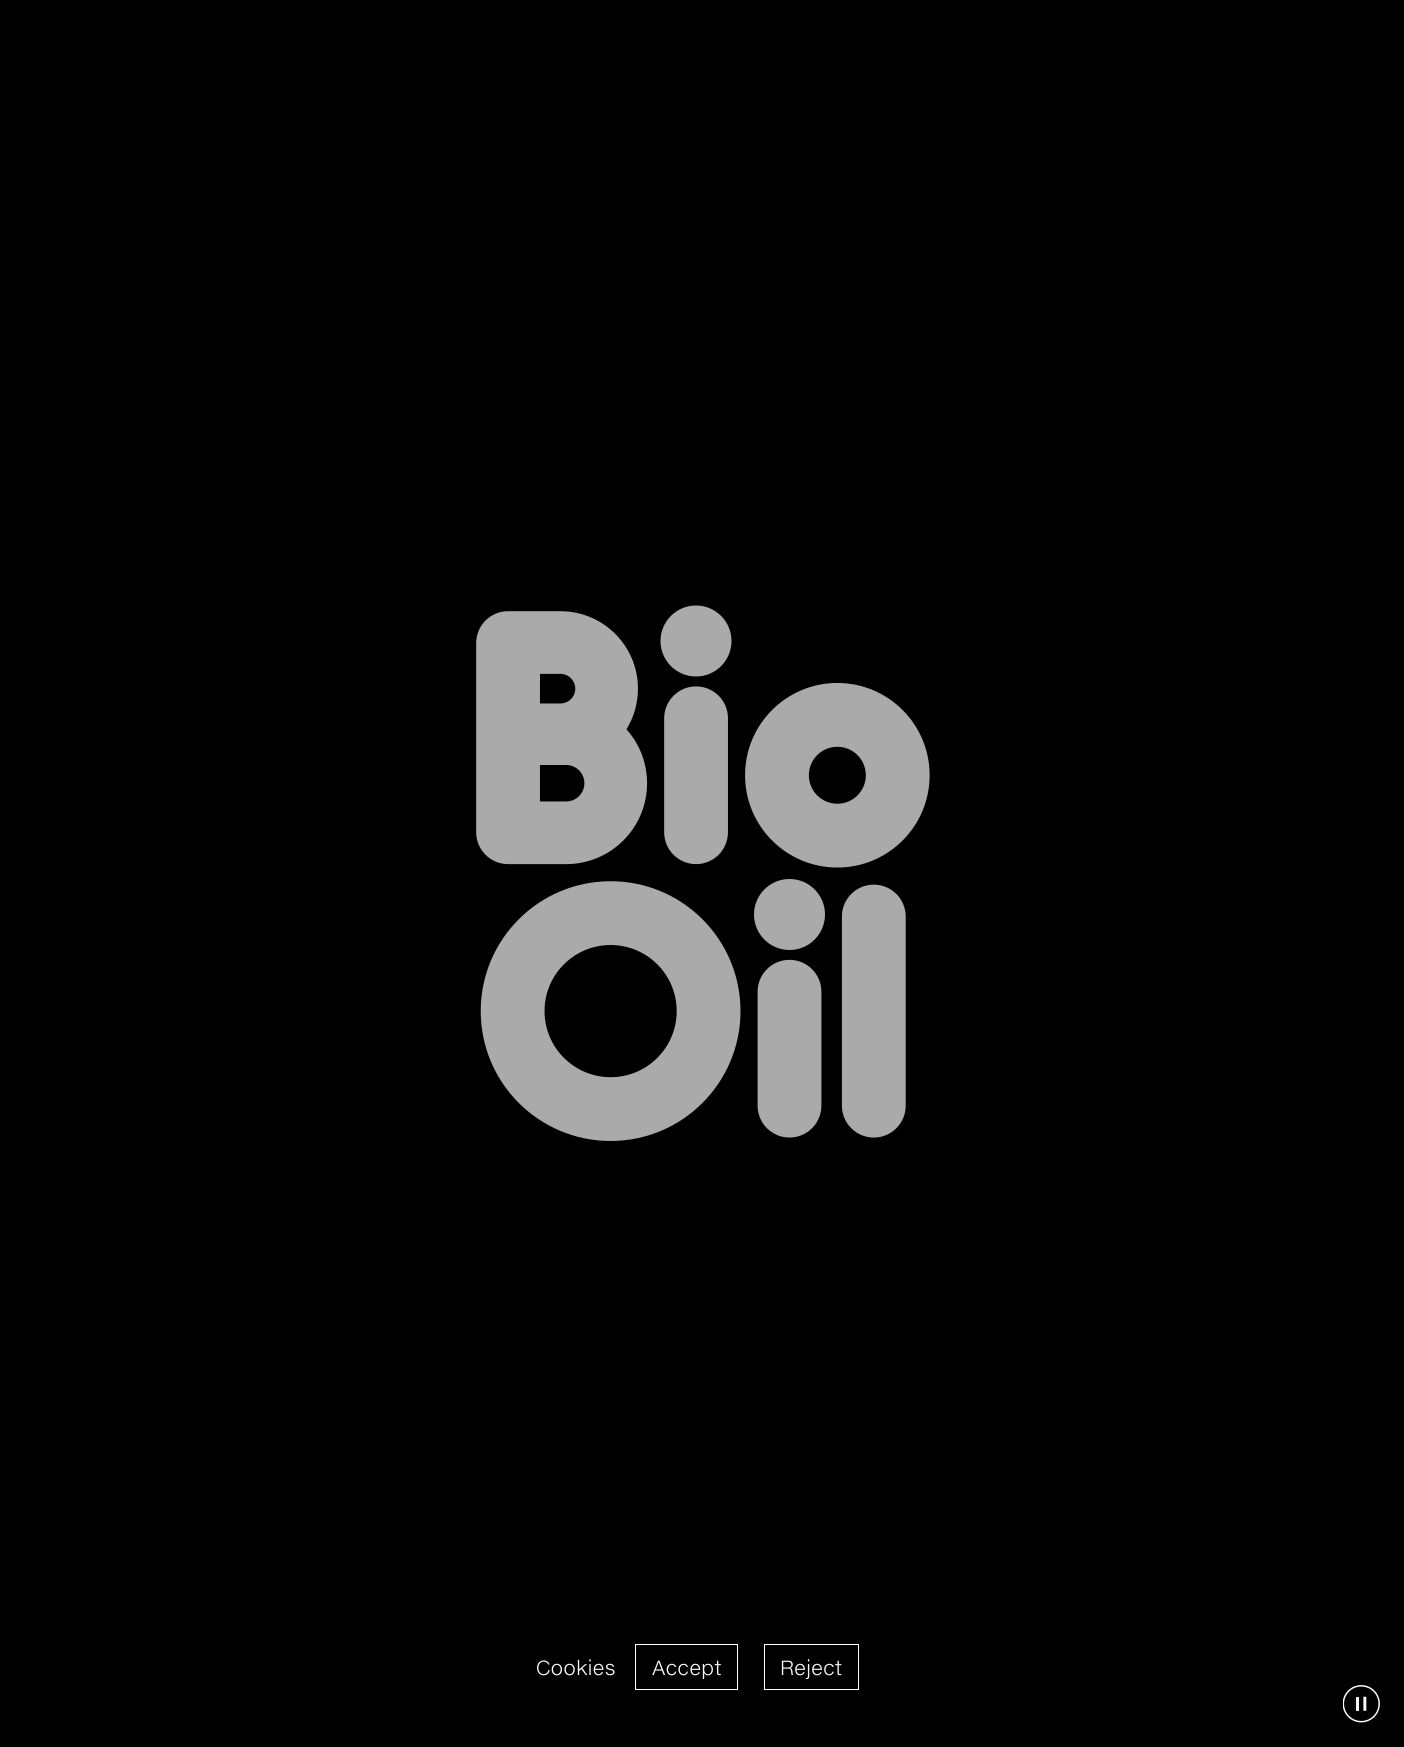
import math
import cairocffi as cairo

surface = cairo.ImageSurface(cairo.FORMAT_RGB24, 1404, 1747)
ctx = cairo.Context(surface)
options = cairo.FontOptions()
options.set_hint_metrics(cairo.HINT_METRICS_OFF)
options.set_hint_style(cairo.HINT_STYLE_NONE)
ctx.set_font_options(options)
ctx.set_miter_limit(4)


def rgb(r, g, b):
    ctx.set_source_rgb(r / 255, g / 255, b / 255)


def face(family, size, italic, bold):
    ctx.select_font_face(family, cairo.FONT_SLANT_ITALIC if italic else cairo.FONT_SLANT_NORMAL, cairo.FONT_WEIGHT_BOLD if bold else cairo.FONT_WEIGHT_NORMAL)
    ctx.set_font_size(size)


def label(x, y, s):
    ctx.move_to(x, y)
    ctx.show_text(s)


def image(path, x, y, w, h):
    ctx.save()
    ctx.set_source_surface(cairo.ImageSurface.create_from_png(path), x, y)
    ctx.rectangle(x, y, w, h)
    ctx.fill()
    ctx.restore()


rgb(0, 0, 0)
ctx.paint()
image('image0.png', 476, 605, 454, 536)
face('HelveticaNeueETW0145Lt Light', 20, 0, 0)
rgb(255, 255, 255)
label(536, 1675, 'Cookies')
ctx.rectangle(635.5, 1644.5, 102, 45)
ctx.set_line_width(1)
ctx.stroke()
label(652, 1675, 'Accept')
ctx.rectangle(764.5, 1644.5, 94, 45)
ctx.stroke()
label(780, 1675, 'Reject')
image('image1.png', 1343, 1685, 37, 38)
surface.write_to_png('render.png')
